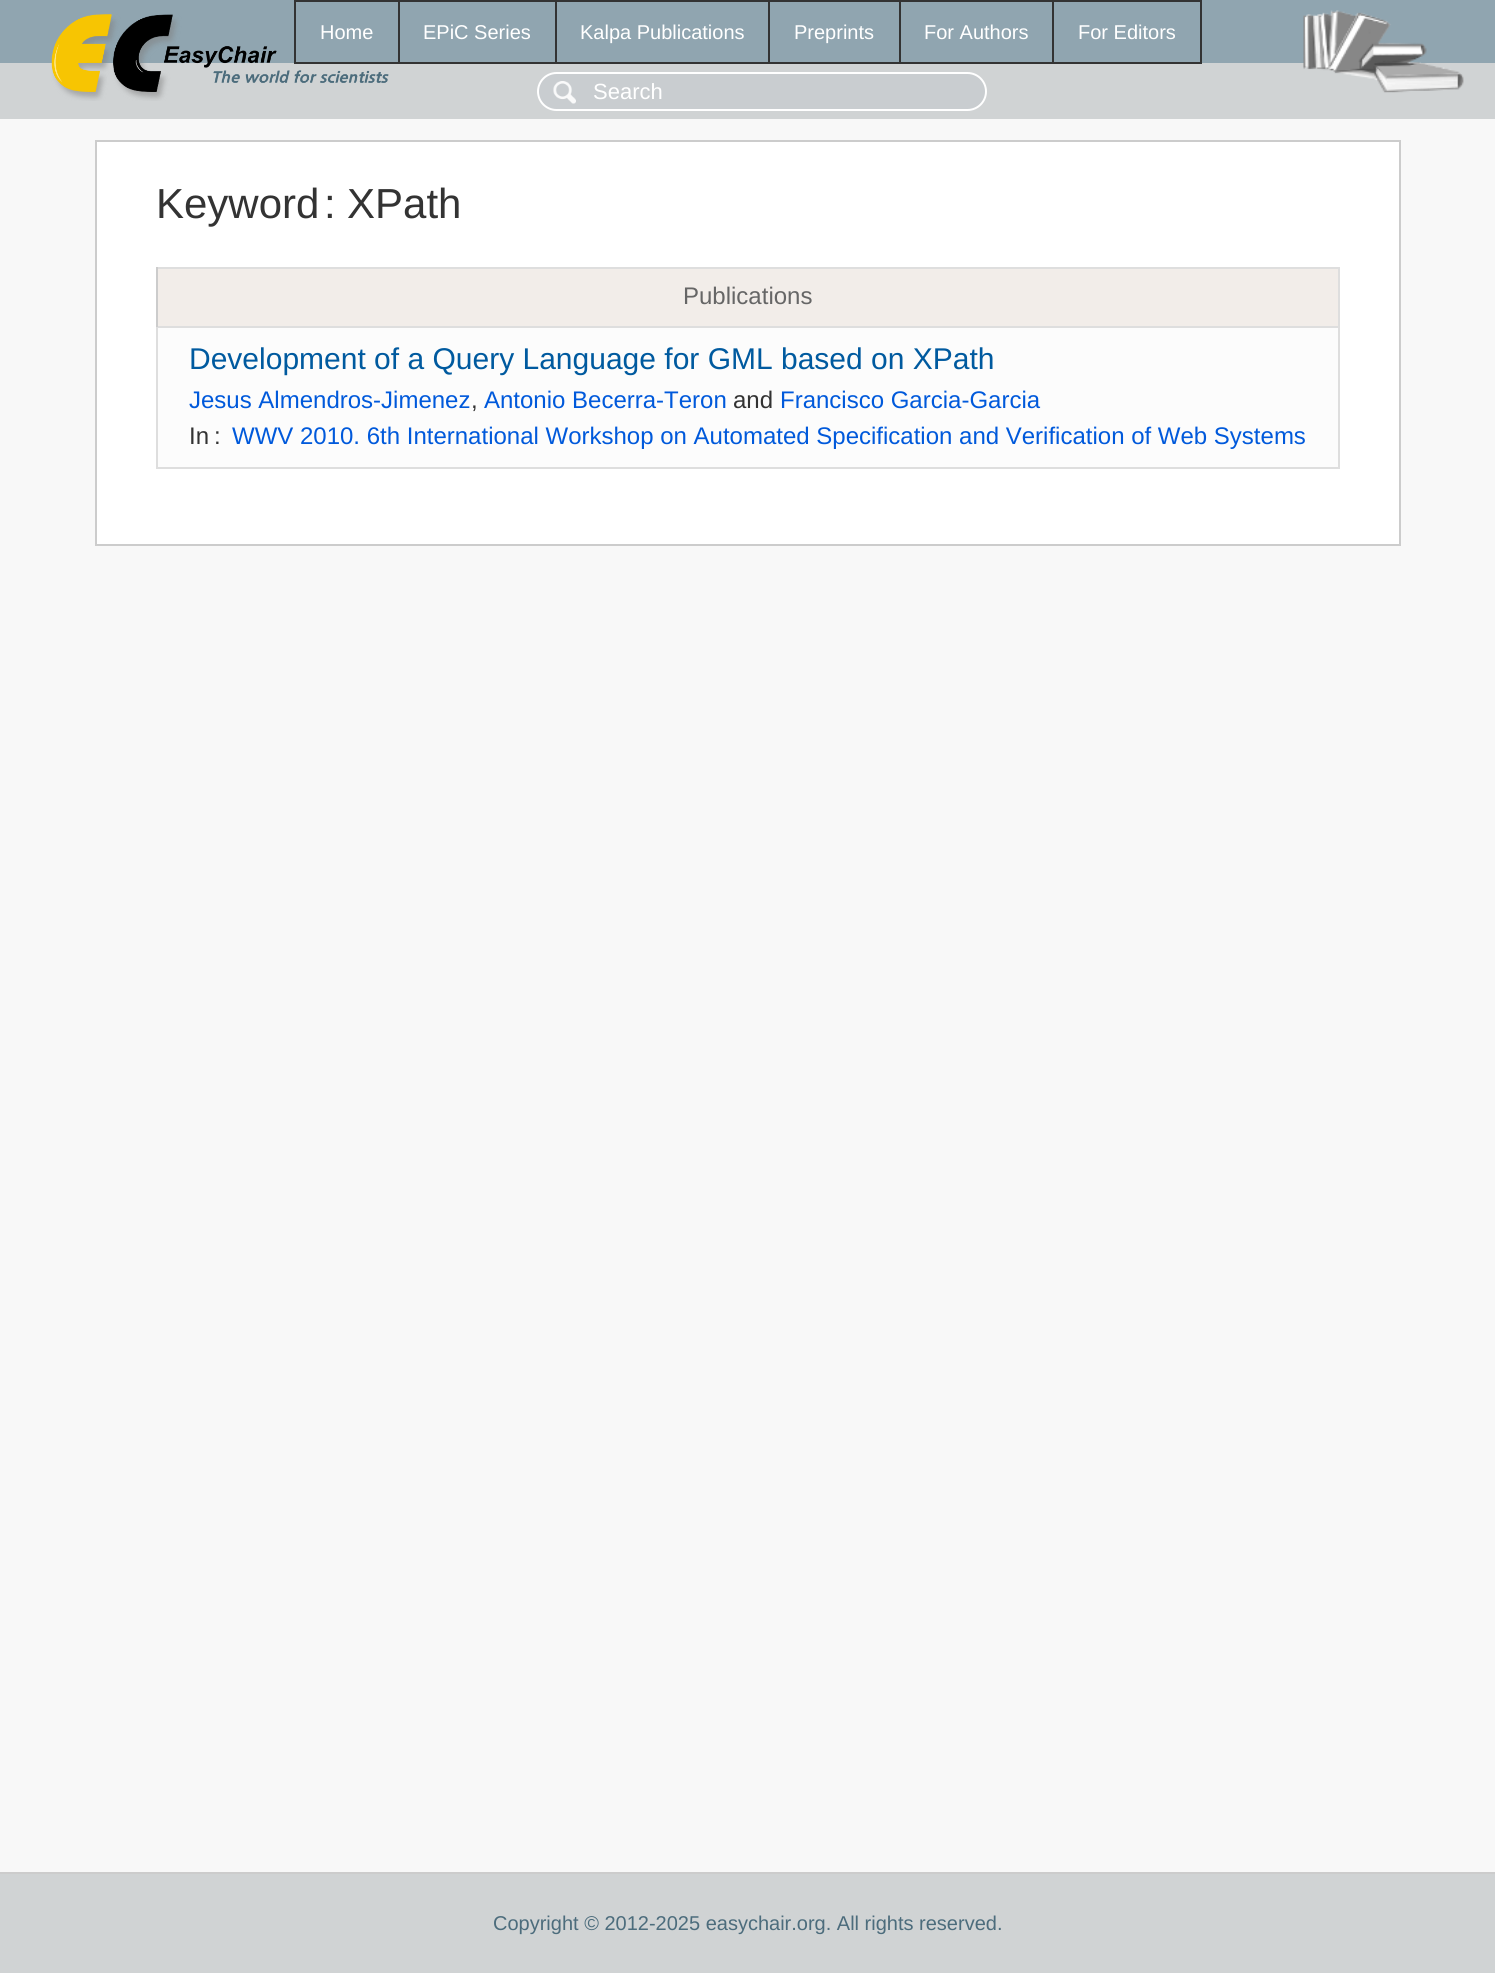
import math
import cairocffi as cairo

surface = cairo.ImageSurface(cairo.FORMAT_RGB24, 1495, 1973)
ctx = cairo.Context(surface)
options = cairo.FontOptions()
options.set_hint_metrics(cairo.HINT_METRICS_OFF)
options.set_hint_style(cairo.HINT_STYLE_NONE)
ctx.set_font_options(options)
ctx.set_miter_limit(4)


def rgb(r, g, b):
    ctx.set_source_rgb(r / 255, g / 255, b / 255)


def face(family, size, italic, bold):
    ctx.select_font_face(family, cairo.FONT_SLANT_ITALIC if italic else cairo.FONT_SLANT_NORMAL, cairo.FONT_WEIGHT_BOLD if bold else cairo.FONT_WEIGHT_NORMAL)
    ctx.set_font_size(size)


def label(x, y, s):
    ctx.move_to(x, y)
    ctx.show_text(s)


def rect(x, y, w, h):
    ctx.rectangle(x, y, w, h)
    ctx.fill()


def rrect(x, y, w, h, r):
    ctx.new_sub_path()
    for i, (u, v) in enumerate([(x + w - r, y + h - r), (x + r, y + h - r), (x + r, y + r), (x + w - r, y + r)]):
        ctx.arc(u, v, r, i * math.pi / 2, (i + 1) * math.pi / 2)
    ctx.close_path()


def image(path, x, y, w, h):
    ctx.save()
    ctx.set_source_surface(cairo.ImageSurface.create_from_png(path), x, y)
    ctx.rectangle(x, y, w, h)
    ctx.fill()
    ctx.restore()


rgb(144, 165, 176)
ctx.paint()
rgb(208, 211, 212)
rect(0, 65, 1494, 52)
rect(0, 63, 1495, 2)
image('image0.png', 51, 14, 338, 87)
rgb(51, 51, 51)
rect(1052, 0, 150, 2)
rect(1200, 0, 2, 63)
rect(1052, 62, 150, 2)
rect(1052, 0, 2, 63)
rect(899, 0, 154, 2)
rect(899, 62, 154, 2)
rect(899, 0, 2, 63)
rect(768, 0, 132, 2)
rect(768, 62, 132, 2)
rect(768, 0, 2, 63)
rect(555, 0, 215, 2)
rect(555, 62, 215, 2)
rect(555, 0, 2, 63)
rect(398, 0, 159, 2)
rect(398, 62, 159, 2)
rect(398, 0, 2, 63)
rect(294, 0, 105, 2)
rect(294, 62, 105, 2)
rect(294, 0, 2, 63)
face('Liberation Sans', 20, 0, 0)
rgb(255, 255, 255)
label(320, 39, 'Home')
label(423, 39, 'EPiC Series')
label(580, 39, 'Kalpa Publications')
label(794, 39, 'Preprints')
label(924, 39, 'For Authors')
label(1078, 39, 'For Editors')
image('image1.png', 1303, 10, 161, 83)
rgb(208, 211, 212)
rect(1494, 63, 1, 56)
rect(0, 117, 1495, 2)
rgb(201, 205, 208)
rrect(537, 72, 450, 39, 19.5)
ctx.fill()
image('image2.png', 553, 81, 23, 23)
rrect(538, 73, 448, 37, 18.5)
rgb(255, 255, 255)
ctx.stroke()
face('Liberation Sans', 22, 0, 0)
label(593, 99, 'Search')
rgb(248, 248, 248)
rect(0, 119, 1495, 1753)
rgb(255, 255, 255)
ctx.rectangle(96, 141, 1304, 404)
ctx.fill_preserve()
rgb(204, 204, 204)
ctx.stroke()
face('Liberation Sans', 42, 0, 0)
rgb(51, 51, 51)
label(156, 218, 'Keyword')
label(324, 218, ':')
label(347, 218, 'XPath')
rgb(222, 222, 222)
rect(156, 267, 1184, 2)
rect(1338, 267, 2, 201)
rect(156, 467, 1184, 2)
rect(156, 328, 2, 140)
rgb(242, 237, 233)
rect(158, 269, 1180, 57)
rgb(222, 222, 222)
rect(156, 326, 1184, 2)
rgb(204, 204, 204)
rect(156, 267, 2, 60)
face('Liberation Sans', 24, 0, 0)
rgb(102, 102, 102)
label(683, 304, 'Publications')
rgb(252, 252, 252)
rect(158, 328, 1180, 139)
face('Liberation Sans', 30, 0, 0)
rgb(0, 90, 159)
label(189, 369, 'Development of a Query Language for GML based on XPath')
face('Liberation Sans', 24, 0, 0)
rgb(0, 89, 219)
label(189, 408, 'Jesus Almendros-Jimenez')
rgb(51, 51, 51)
label(471, 408, ',')
rgb(0, 89, 219)
label(484, 408, 'Antonio Becerra-Teron')
rgb(51, 51, 51)
label(733, 408, 'and')
rgb(0, 89, 219)
label(780, 408, 'Francisco Garcia-Garcia')
rgb(51, 51, 51)
label(189, 444, 'In')
label(214, 444, ':')
rgb(0, 89, 219)
label(232, 444, 'WWV 2010. 6th International Workshop on Automated Specification and Verification of Web Systems')
rgb(208, 211, 212)
rect(0, 1874, 1495, 99)
rgb(204, 204, 204)
rect(0, 1872, 1495, 2)
face('Liberation Sans', 20, 0, 0)
rgb(76, 108, 124)
label(493, 1930, 'Copyright © 2012-2025 easychair.org. All rights reserved.')
surface.write_to_png('render.png')
